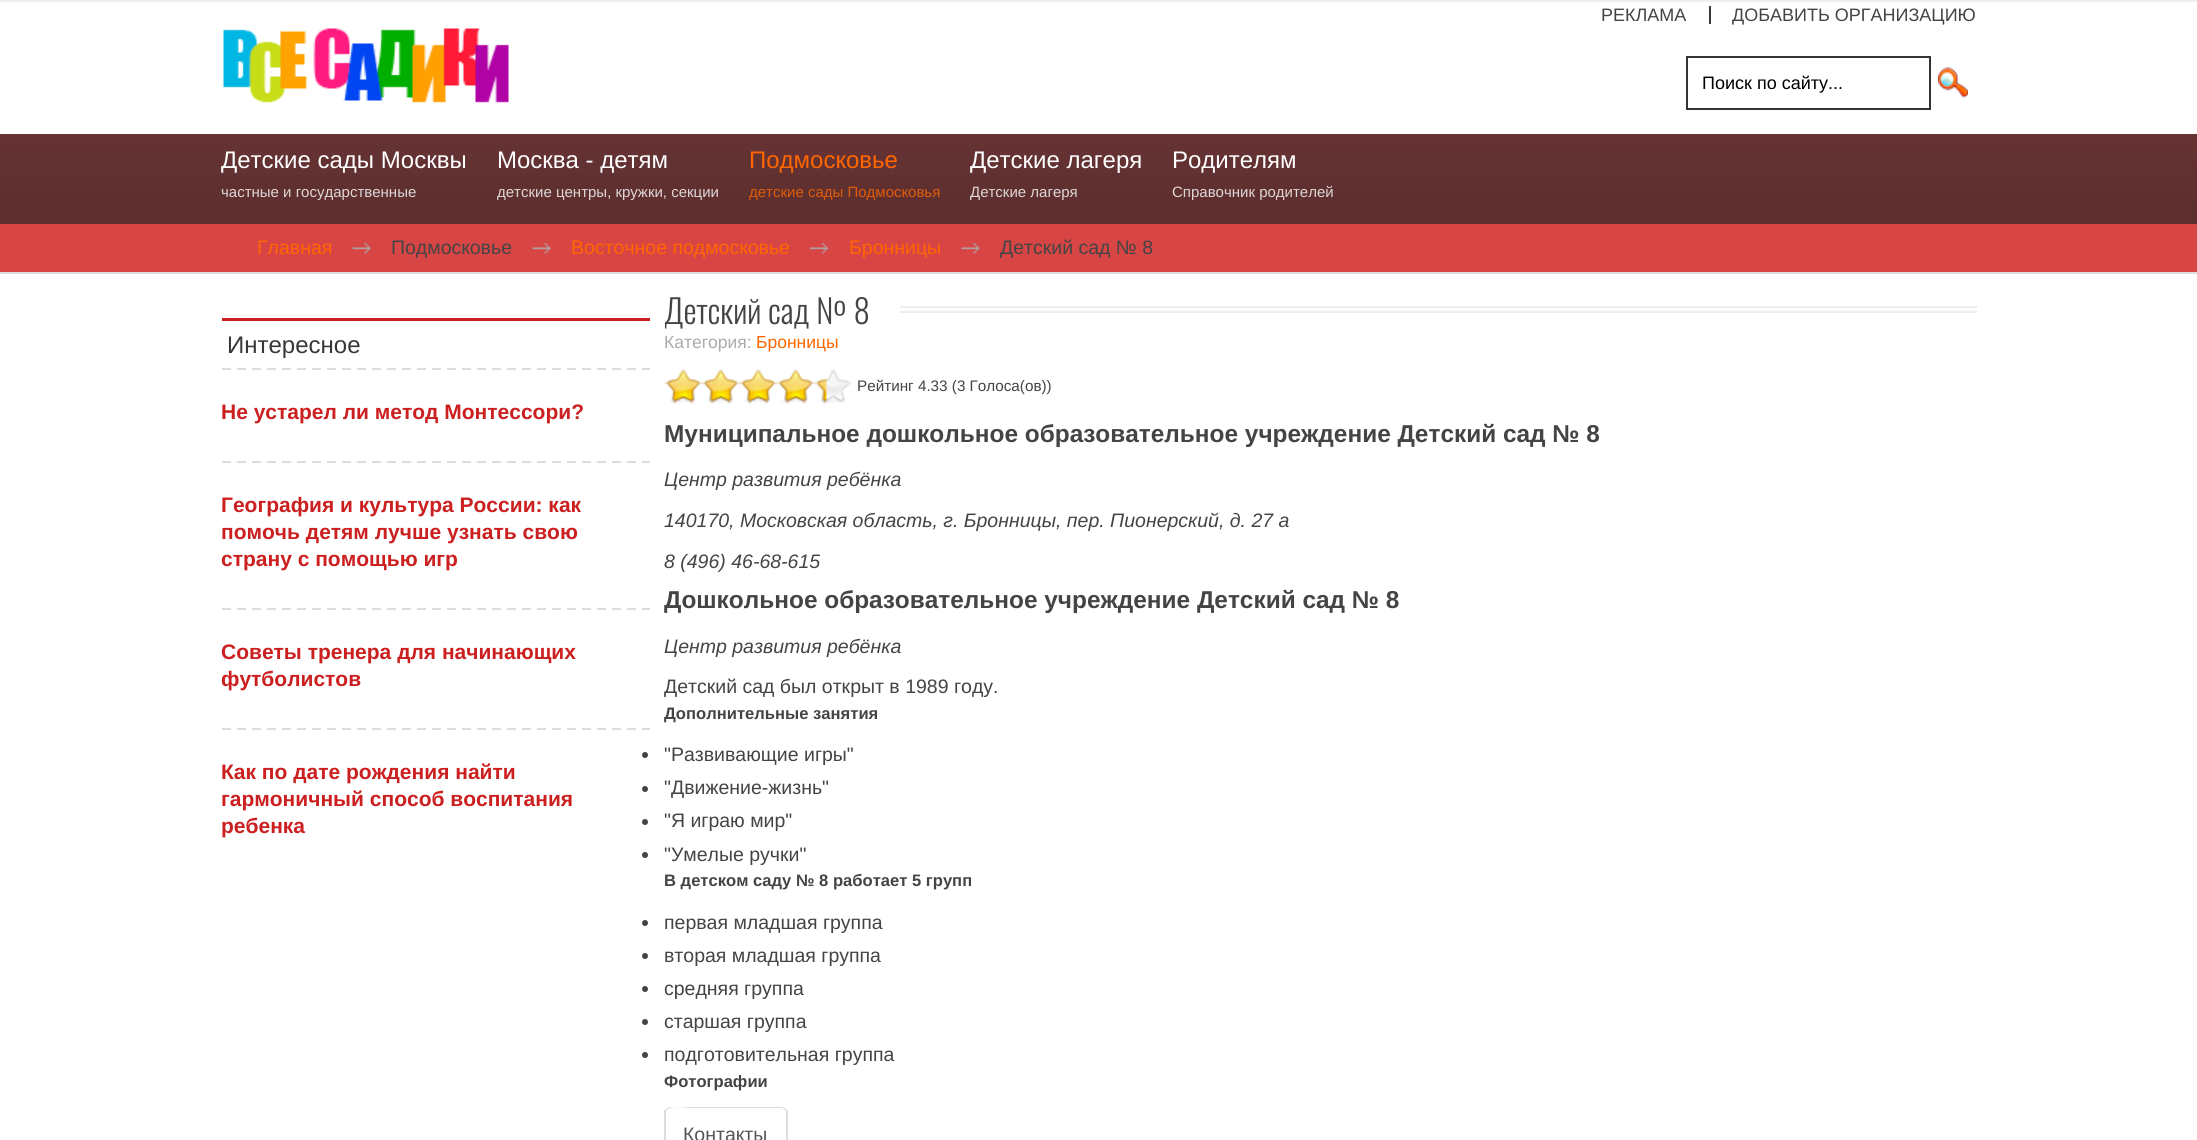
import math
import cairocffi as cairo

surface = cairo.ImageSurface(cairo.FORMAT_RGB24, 2197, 1140)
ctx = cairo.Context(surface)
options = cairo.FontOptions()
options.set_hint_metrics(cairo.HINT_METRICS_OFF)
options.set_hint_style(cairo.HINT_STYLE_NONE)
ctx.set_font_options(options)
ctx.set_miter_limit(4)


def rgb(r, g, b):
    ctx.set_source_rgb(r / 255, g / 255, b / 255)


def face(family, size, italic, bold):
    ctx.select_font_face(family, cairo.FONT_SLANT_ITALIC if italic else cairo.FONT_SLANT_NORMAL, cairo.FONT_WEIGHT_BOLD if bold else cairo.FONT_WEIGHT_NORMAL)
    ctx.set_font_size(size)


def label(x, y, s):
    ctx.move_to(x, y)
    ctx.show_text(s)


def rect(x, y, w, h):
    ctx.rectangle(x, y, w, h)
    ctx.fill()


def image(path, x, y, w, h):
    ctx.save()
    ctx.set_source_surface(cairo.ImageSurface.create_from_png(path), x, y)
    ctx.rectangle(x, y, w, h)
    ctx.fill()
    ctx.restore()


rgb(255, 255, 255)
ctx.paint()
rgb(238, 238, 238)
rect(0, 0, 2197, 2)
image('image0.png', 223, 28, 286, 75)
face('Liberation Sans', 18, 0, 0)
rgb(68, 68, 68)
label(1601, 21, 'РЕКЛАМА')
rgb(58, 58, 58)
rect(1709, 6, 2, 18)
rgb(68, 68, 68)
label(1732, 21, 'ДОБАВИТЬ ОРГАНИЗАЦИЮ')
ctx.rectangle(1687, 57, 243, 52)
rgb(51, 51, 51)
ctx.stroke()
rgb(0, 0, 0)
label(1702, 89, 'Поиск по сайту...')
image('image1.png', 1938, 67, 30, 31)
gradient = cairo.LinearGradient(1099, 133, 1099, 224)
gradient.add_color_stop_rgba(0, 0.4, 0.2, 0.2, 1)
gradient.add_color_stop_rgba(1, 0.361, 0.18, 0.18, 1)
ctx.set_source(gradient)
rect(0, 134, 2197, 90)
face('Liberation Sans', 24, 0, 0)
rgb(255, 255, 255)
label(221, 168, 'Детские сады Москвы')
face('Liberation Sans', 15, 0, 0)
rgb(223, 214, 214)
label(221, 197, 'частные и государственные')
face('Liberation Sans', 24, 0, 0)
rgb(255, 255, 255)
label(497, 168, 'Москва - детям')
face('Liberation Sans', 15, 0, 0)
rgb(223, 214, 214)
label(497, 197, 'детские центры, кружки, секции')
face('Liberation Sans', 24, 0, 0)
rgb(255, 102, 0)
label(749, 168, 'Подмосковье')
face('Liberation Sans', 15, 0, 0)
rgb(223, 91, 10)
label(749, 197, 'детские сады Подмосковья')
face('Liberation Sans', 24, 0, 0)
rgb(255, 255, 255)
label(970, 168, 'Детские лагеря')
face('Liberation Sans', 15, 0, 0)
rgb(223, 214, 214)
label(970, 197, 'Детские лагеря')
face('Liberation Sans', 24, 0, 0)
rgb(255, 255, 255)
label(1172, 168, 'Родителям')
face('Liberation Sans', 15, 0, 0)
rgb(223, 214, 214)
label(1172, 197, 'Справочник родителей')
rgb(216, 69, 69)
rect(0, 224, 2197, 48)
face('Liberation Sans', 19.5, 0, 0)
rgb(255, 102, 0)
label(257, 254, 'Главная')
image('image2.png', 352, 243, 19, 11)
rgb(68, 68, 68)
label(391, 254, 'Подмосковье')
image('image2.png', 532, 243, 19, 11)
rgb(255, 102, 0)
label(571, 254, 'Восточное подмосковье')
image('image3.png', 810, 243, 18, 11)
label(849, 254, 'Бронницы')
image('image4.png', 961, 243, 19, 11)
rgb(68, 68, 68)
label(1000, 254, 'Детский сад № 8')
rgb(221, 221, 221)
rect(0, 272, 2197, 2)
rgb(204, 31, 31)
rect(222, 318, 428, 3)
face('Liberation Sans', 24, 0, 0)
rgb(55, 55, 55)
label(227, 353, 'Интересное')
image('image5.png', 222, 368, 428, 2)
face('Liberation Sans', 21, 0, 1)
rgb(204, 31, 31)
label(221, 419, 'Не устарел ли метод Монтессори?')
image('image5.png', 222, 461, 428, 2)
label(221, 512, 'География и культура России: как')
label(221, 539, 'помочь детям лучше узнать свою')
label(221, 566, 'страну с помощью игр')
image('image5.png', 222, 608, 428, 2)
label(221, 659, 'Советы тренера для начинающих')
label(221, 686, 'футболистов')
image('image5.png', 222, 728, 428, 2)
label(221, 779, 'Как по дате рождения найти')
label(221, 806, 'гармоничный способ воспитания')
label(221, 833, 'ребенка')
ctx.save()
ctx.rectangle(665, 288, 1312, 44)
ctx.clip()
face('Oswald Light', 33, 0, 0)
rgb(68, 68, 68)
label(664, 324, 'Детский сад № 8')
ctx.restore()
rgb(238, 238, 238)
rect(900, 306, 1077, 2)
rect(900, 311, 1077, 2)
face('Liberation Sans', 17.5, 0, 0)
rgb(172, 171, 171)
label(664, 348, 'Категория:')
rgb(255, 102, 0)
label(756, 348, 'Бронницы')
image('image6.png', 665, 369, 187, 34)
image('image7.png', 664, 369, 163, 35)
face('Liberation Sans', 15.25, 0, 0)
rgb(68, 68, 68)
label(857, 391, 'Рейтинг 4.33 (3 Голоса(ов))')
face('Liberation Sans', 24.4, 0, 1)
label(664, 442, 'Муниципальное дошкольное образовательное учреждение Детский сад № 8')
face('Liberation Sans', 19.5, 1, 0)
label(664, 486, 'Центр развития ребёнка')
label(664, 527, '140170, Московская область, г. Бронницы, пер. Пионерский, д. 27 а')
label(664, 568, '8 (496) 46-68-615')
face('Liberation Sans', 24.4, 0, 1)
label(664, 608, 'Дошкольное образовательное учреждение Детский сад № 8')
face('Liberation Sans', 19.5, 1, 0)
label(664, 653, 'Центр развития ребёнка')
face('Liberation Sans', 19.5, 0, 0)
label(664, 693, 'Детский сад был открыт в 1989 году.')
face('Liberation Sans', 16.6, 0, 1)
label(664, 719, 'Дополнительные занятия')
ctx.new_path()
ctx.arc(645, 755, 3, 0, 2 * math.pi)
ctx.fill()
face('Liberation Sans', 19.5, 0, 0)
label(664, 761, '"Развивающие игры"')
ctx.new_path()
ctx.arc(645, 789, 3, 0, 2 * math.pi)
ctx.fill()
label(664, 794, '"Движение-жизнь"')
ctx.new_path()
ctx.arc(645, 822, 3, 0, 2 * math.pi)
ctx.fill()
label(664, 827, '"Я играю мир"')
ctx.new_path()
ctx.arc(645, 855, 3, 0, 2 * math.pi)
ctx.fill()
label(664, 861, '"Умелые ручки"')
face('Liberation Sans', 16.6, 0, 1)
label(664, 886, 'В детском саду № 8 работает 5 групп')
ctx.new_path()
ctx.arc(645, 923, 3, 0, 2 * math.pi)
ctx.fill()
face('Liberation Sans', 19.5, 0, 0)
label(664, 929, 'первая младшая группа')
ctx.new_path()
ctx.arc(645, 956, 3, 0, 2 * math.pi)
ctx.fill()
label(664, 962, 'вторая младшая группа')
ctx.new_path()
ctx.arc(645, 989, 3, 0, 2 * math.pi)
ctx.fill()
label(664, 995, 'средняя группа')
ctx.new_path()
ctx.arc(645, 1022, 3, 0, 2 * math.pi)
ctx.fill()
label(664, 1028, 'старшая группа')
ctx.new_path()
ctx.arc(645, 1055, 3, 0, 2 * math.pi)
ctx.fill()
label(664, 1061, 'подготовительная группа')
face('Liberation Sans', 16.6, 0, 1)
label(664, 1087, 'Фотографии')
rgb(221, 221, 221)
ctx.new_path()
ctx.move_to(670, 1107)
ctx.curve_to(669, 1107, 667, 1108, 666, 1109)
ctx.line_to(667, 1110)
ctx.curve_to(671, 1105, 687, 1108, 689, 1108)
ctx.line_to(782, 1108)
ctx.line_to(785, 1110)
ctx.line_to(786, 1109)
ctx.curve_to(785, 1108, 783, 1107, 782, 1107)
ctx.close_path()
ctx.fill()
ctx.new_path()
ctx.move_to(786, 1109)
ctx.line_to(788, 1111)
ctx.line_to(788, 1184)
ctx.line_to(786, 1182)
ctx.line_to(786, 1113)
ctx.curve_to(786, 1112, 786, 1111, 785, 1110)
ctx.close_path()
ctx.fill()
ctx.new_path()
ctx.move_to(664, 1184)
ctx.line_to(664, 1111)
ctx.line_to(666, 1109)
ctx.line_to(667, 1110)
ctx.curve_to(666, 1111, 666, 1112, 666, 1113)
ctx.line_to(666, 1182)
ctx.close_path()
ctx.fill()
face('Liberation Sans', 19.5, 0, 0)
rgb(85, 85, 85)
label(683, 1141, 'Контакты')
surface.write_to_png('render.png')
